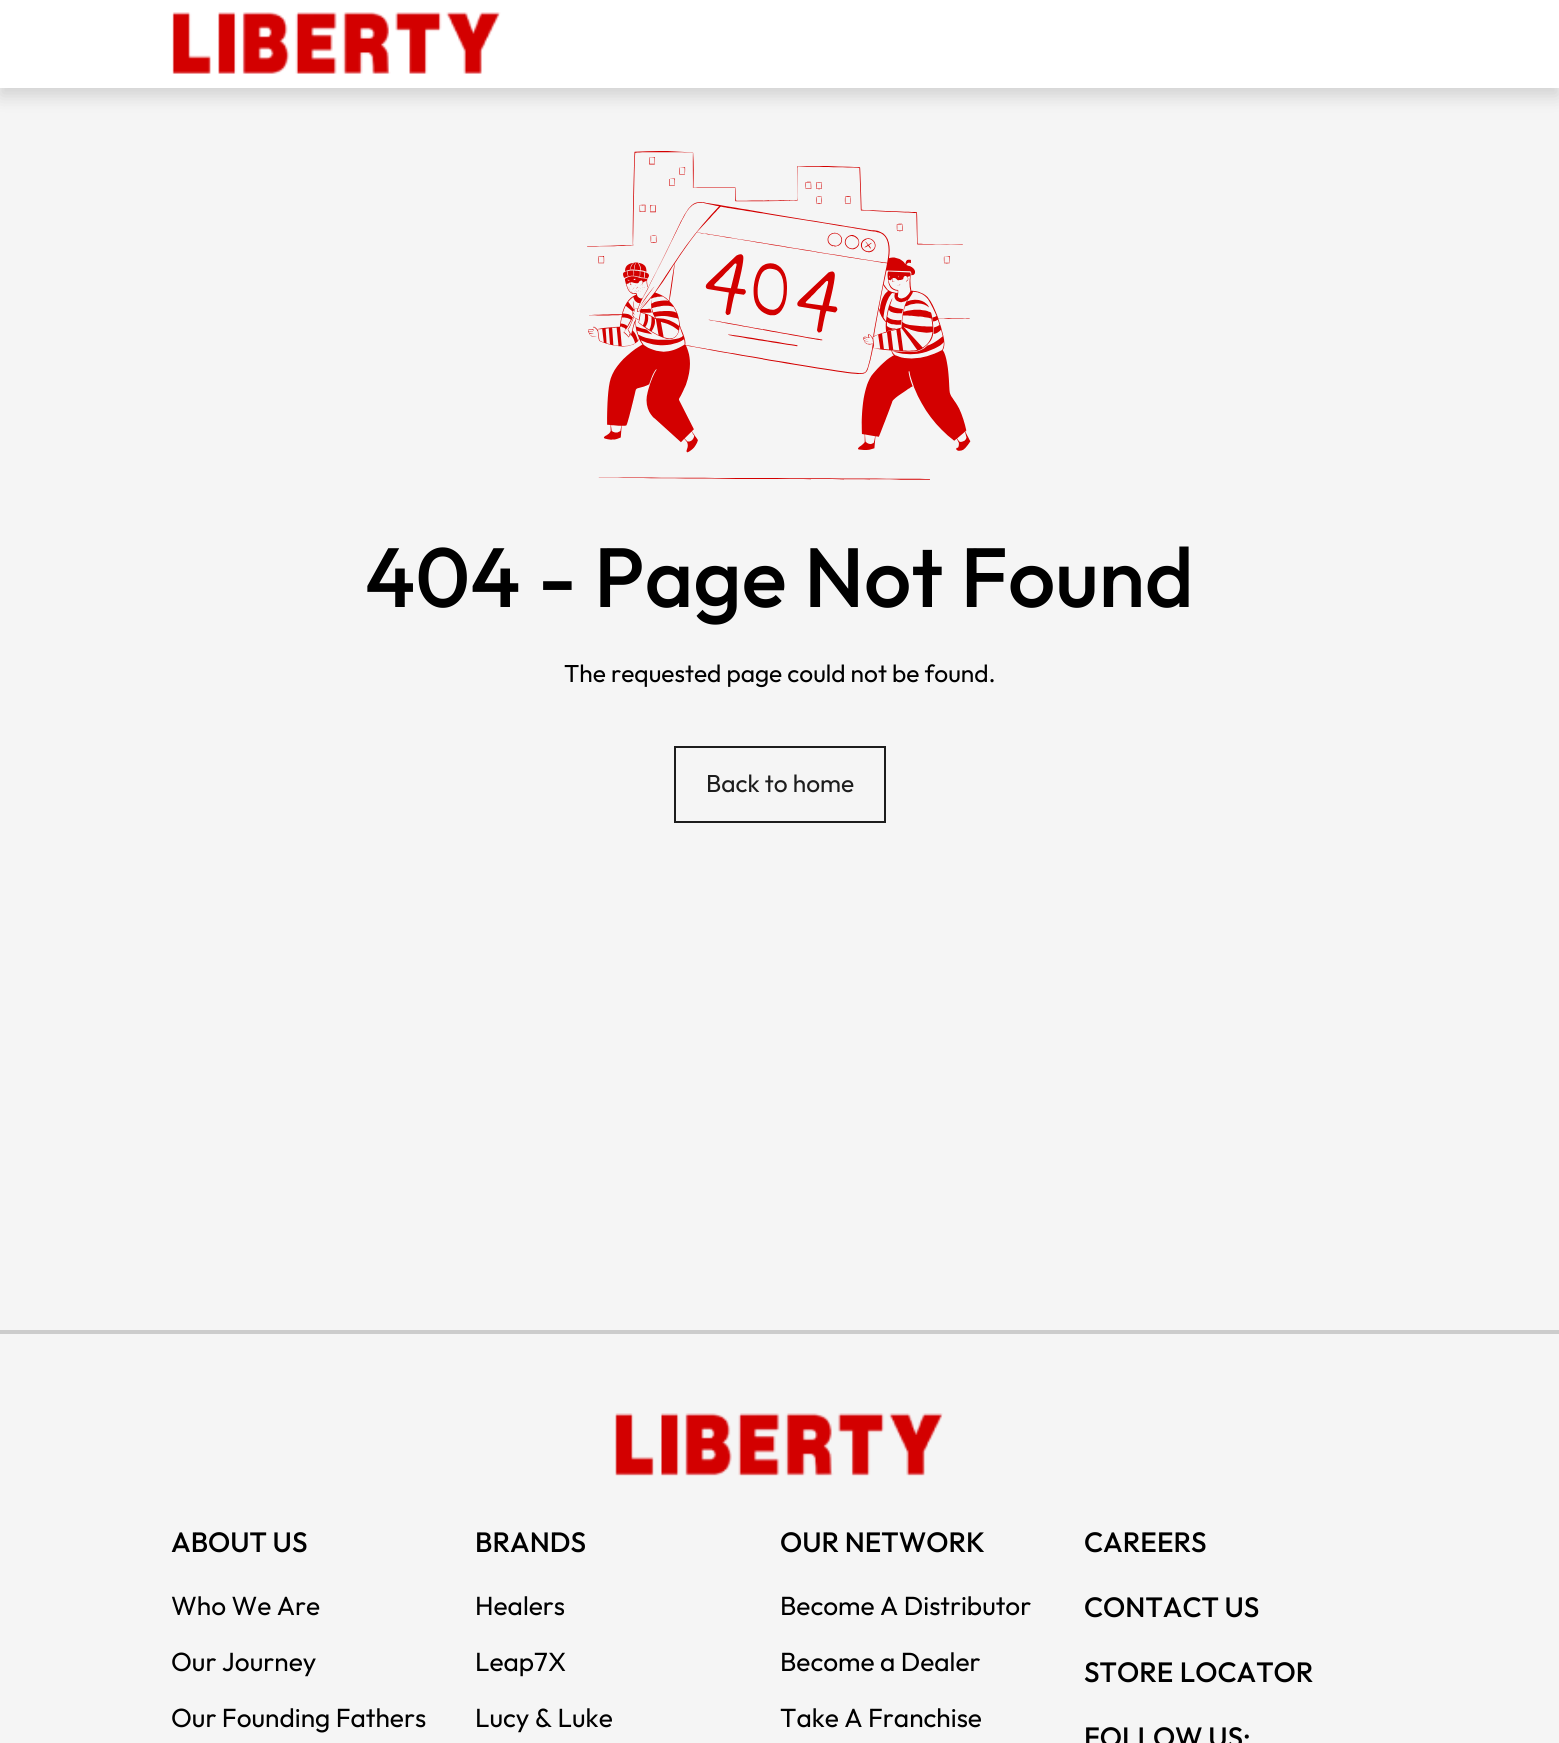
import math
import cairocffi as cairo

surface = cairo.ImageSurface(cairo.FORMAT_RGB24, 1559, 1743)
ctx = cairo.Context(surface)
options = cairo.FontOptions()
options.set_hint_metrics(cairo.HINT_METRICS_OFF)
options.set_hint_style(cairo.HINT_STYLE_NONE)
ctx.set_font_options(options)
ctx.set_miter_limit(4)


def rgb(r, g, b):
    ctx.set_source_rgb(r / 255, g / 255, b / 255)


def face(family, size, italic, bold):
    ctx.select_font_face(family, cairo.FONT_SLANT_ITALIC if italic else cairo.FONT_SLANT_NORMAL, cairo.FONT_WEIGHT_BOLD if bold else cairo.FONT_WEIGHT_NORMAL)
    ctx.set_font_size(size)


def label(x, y, s):
    ctx.move_to(x, y)
    ctx.show_text(s)


def tracked(x, y, s, letter, word):
    ctx.move_to(x, y)
    for ch in s:
        ctx.show_text(ch)
        ctx.rel_move_to(letter + word * (ch == ' '), 0)


def rect(x, y, w, h):
    ctx.rectangle(x, y, w, h)
    ctx.fill()


def rrect(x, y, w, h, r):
    ctx.new_sub_path()
    for i, (u, v) in enumerate([(x + w - r, y + h - r), (x + r, y + h - r), (x + r, y + r), (x + w - r, y + r)]):
        ctx.arc(u, v, r, i * math.pi / 2, (i + 1) * math.pi / 2)
    ctx.close_path()


def soft_shadow(x, y, w, h, r, blur, alpha):
    ctx.push_group_with_content(cairo.CONTENT_ALPHA)
    ctx.set_operator(cairo.OPERATOR_SOURCE)
    for i in range(15, -16, -2):
        e = blur * i / 6
        if min(w, h) + 2 * e > 0:
            ctx.set_source_rgba(0, 0, 0, alpha * math.erfc((i - 1) / 8.5) / 2)
            rrect(x - e, y - e, w + 2 * e, h + 2 * e, max(0, min(r + e + blur * .6, min(w, h) / 2 + e)))
            ctx.fill()
    ctx.mask(ctx.pop_group())


def image(path, x, y, w, h):
    ctx.save()
    ctx.set_source_surface(cairo.ImageSurface.create_from_png(path), x, y)
    ctx.rectangle(x, y, w, h)
    ctx.fill()
    ctx.restore()


rgb(245, 245, 245)
ctx.paint()
rgb(0, 0, 0)
soft_shadow(0, 9, 1559, 87, 0, 9, 0.15)
rgb(255, 255, 255)
rect(0, 0, 1559, 88)
image('image0.png', 172, 12, 329, 62)
rgb(204, 204, 204)
rect(0, 1330, 1559, 4)
image('image1.png', 587, 151, 384, 329)
face('Outfit Medium', 84, 0, 0)
rgb(0, 0, 0)
tracked(365, 607, '404 - Page Not Found', 0, 0.5)
face('Outfit', 24.5, 0, 0)
label(564, 682, 'The requested page could not be found.')
ctx.rectangle(675, 747, 210, 75)
rgb(29, 29, 29)
ctx.stroke()
label(706, 792, 'Back to home')
image('image2.png', 615, 1413, 328, 63)
face('Outfit Medium', 28, 0, 0)
rgb(0, 0, 0)
label(171, 1552, 'ABOUT US')
face('Outfit', 26.25, 0, 0)
label(171, 1615, 'Who We Are')
label(171, 1671, 'Our Journey')
label(171, 1727, 'Our Founding Fathers')
face('Outfit Medium', 28, 0, 0)
label(475, 1552, 'BRANDS')
face('Outfit', 26.25, 0, 0)
label(475, 1615, 'Healers')
label(475, 1671, 'Leap7X')
label(475, 1727, 'Lucy & Luke')
face('Outfit Medium', 28, 0, 0)
label(780, 1552, 'OUR NETWORK')
face('Outfit', 26.25, 0, 0)
label(780, 1615, 'Become A Distributor')
label(780, 1671, 'Become a Dealer')
label(780, 1727, 'Take A Franchise')
face('Outfit Medium', 28, 0, 0)
label(1084, 1552, 'CAREERS')
label(1084, 1617, 'CONTACT US')
tracked(1084, 1682, 'STORE LOCATOR', 0, 1)
label(1084, 1747, 'FOLLOW US:')
surface.write_to_png('render.png')
